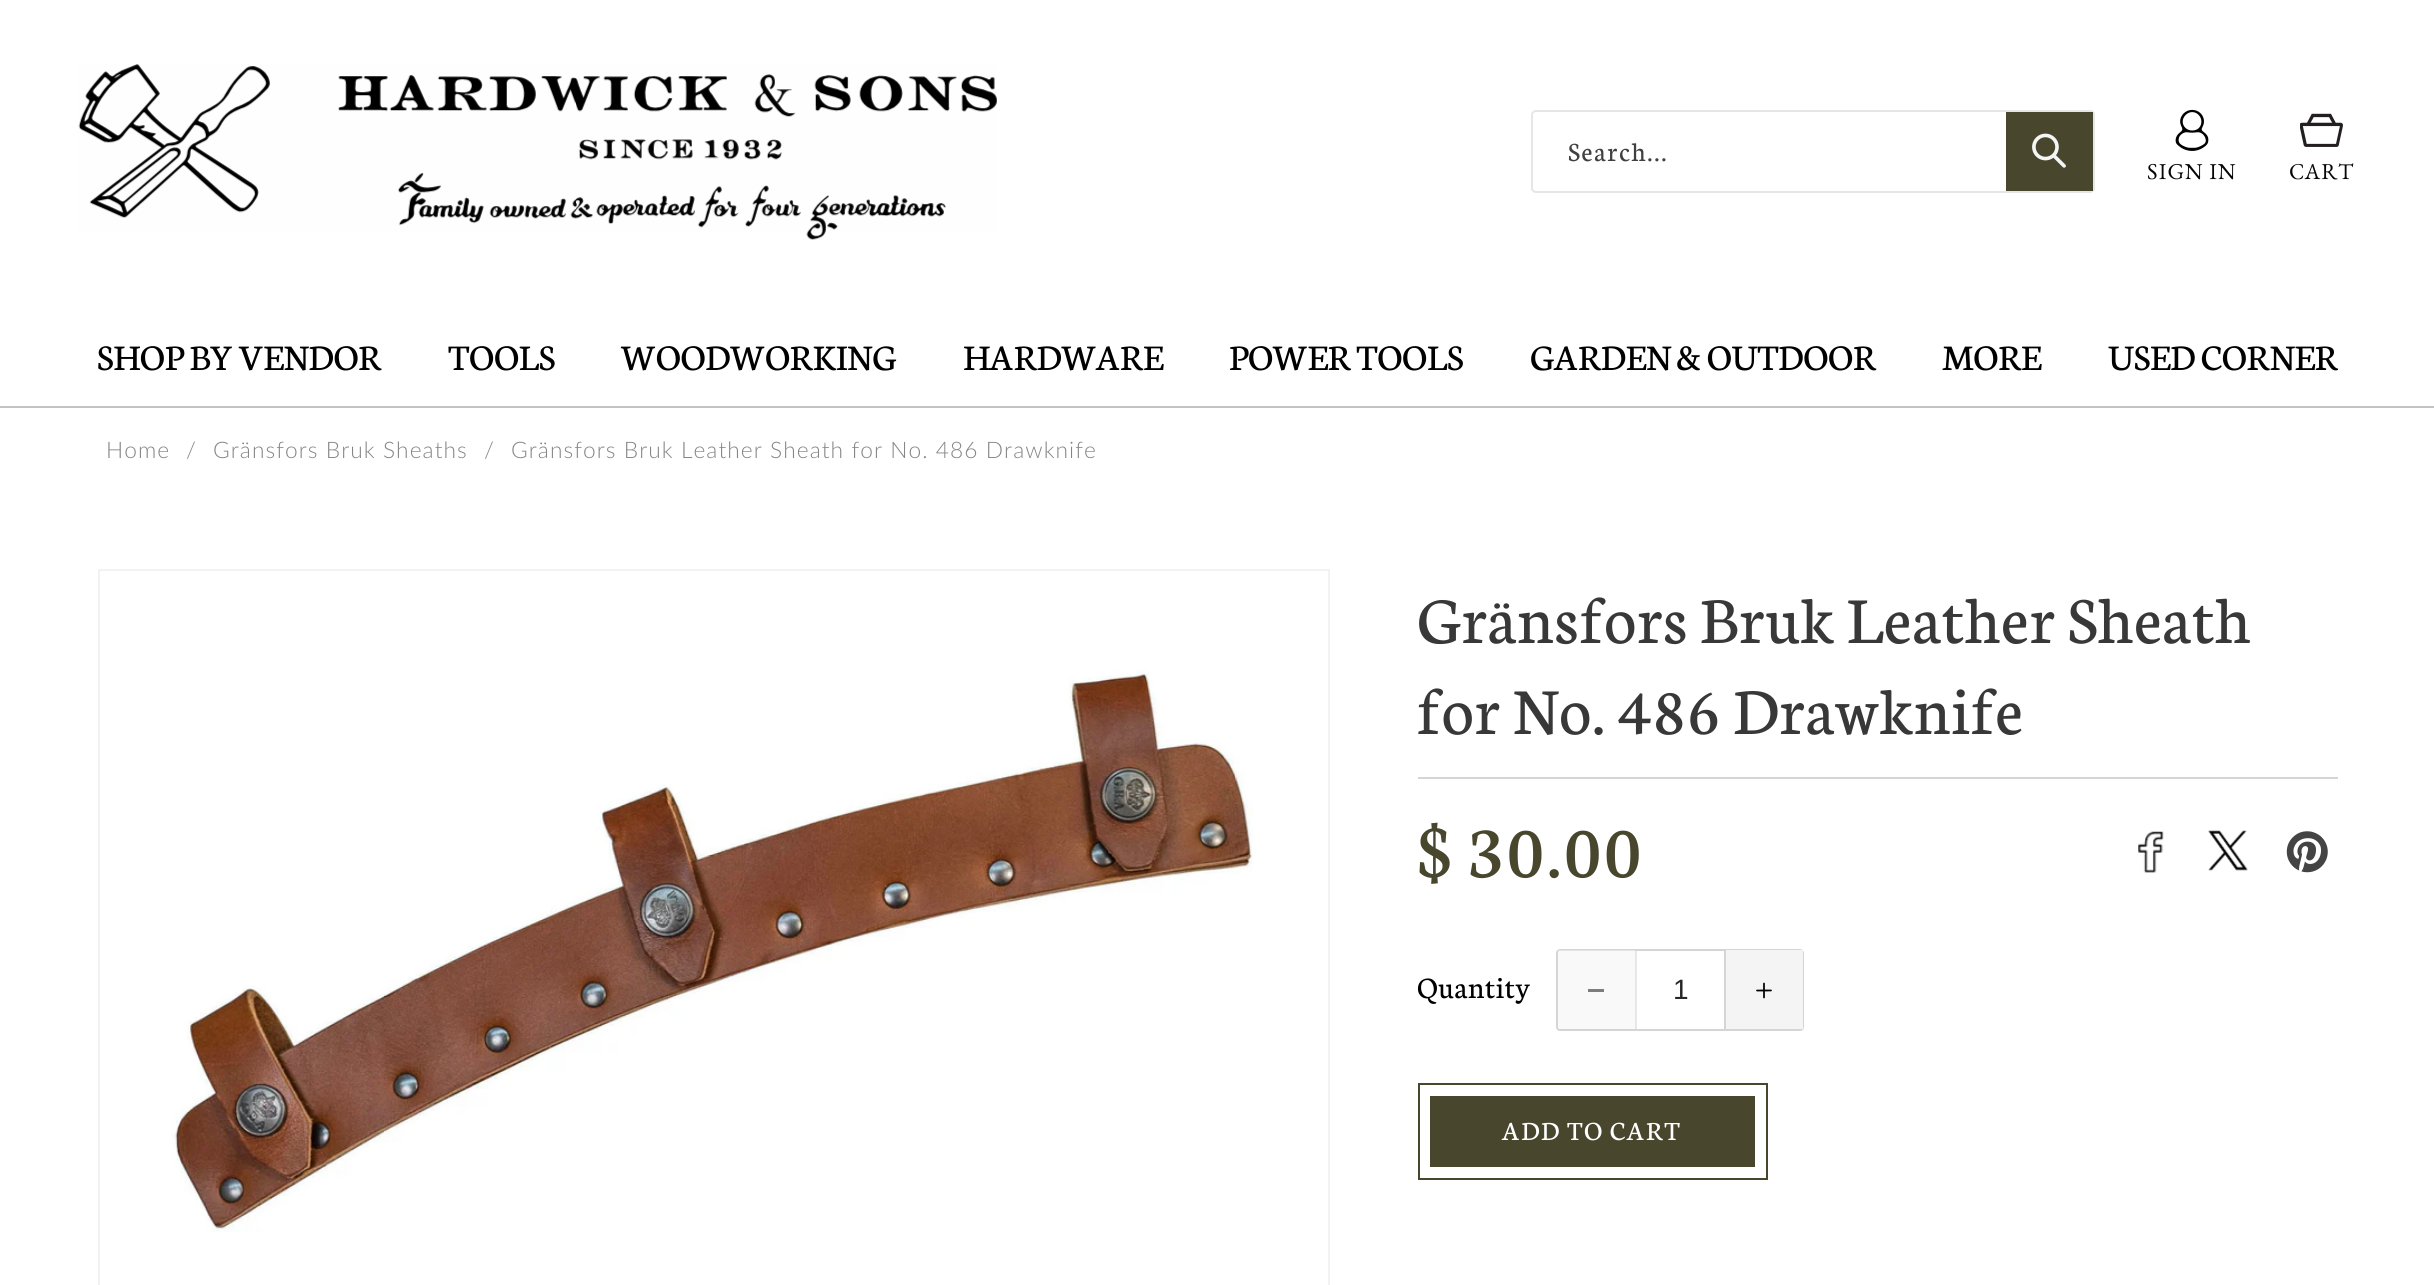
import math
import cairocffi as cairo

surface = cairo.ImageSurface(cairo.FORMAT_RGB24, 2434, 1285)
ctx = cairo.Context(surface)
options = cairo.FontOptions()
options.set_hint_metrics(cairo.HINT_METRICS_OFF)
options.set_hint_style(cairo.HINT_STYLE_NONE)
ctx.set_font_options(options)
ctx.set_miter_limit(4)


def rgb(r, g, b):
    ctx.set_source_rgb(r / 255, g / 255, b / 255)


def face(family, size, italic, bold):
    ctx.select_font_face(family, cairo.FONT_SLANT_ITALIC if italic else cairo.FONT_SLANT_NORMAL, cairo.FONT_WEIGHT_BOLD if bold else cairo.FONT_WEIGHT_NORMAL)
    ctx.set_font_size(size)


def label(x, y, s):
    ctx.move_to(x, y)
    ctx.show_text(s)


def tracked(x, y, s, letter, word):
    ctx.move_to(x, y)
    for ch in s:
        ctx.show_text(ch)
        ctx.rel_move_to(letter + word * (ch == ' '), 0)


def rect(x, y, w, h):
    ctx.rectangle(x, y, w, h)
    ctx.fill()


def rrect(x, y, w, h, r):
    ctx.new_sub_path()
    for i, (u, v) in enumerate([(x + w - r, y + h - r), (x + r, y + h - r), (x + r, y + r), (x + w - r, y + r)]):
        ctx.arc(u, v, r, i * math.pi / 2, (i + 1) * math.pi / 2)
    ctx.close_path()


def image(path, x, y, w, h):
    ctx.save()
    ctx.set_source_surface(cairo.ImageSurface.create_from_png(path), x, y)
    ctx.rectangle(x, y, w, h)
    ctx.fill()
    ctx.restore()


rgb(255, 255, 255)
ctx.paint()
image('image0.png', 78, 64, 919, 176)
rgb(72, 70, 45)
rect(2006, 112, 87, 79)
image('image1.png', 2032, 133, 34, 35)
rrect(1532, 111, 562, 81, 4)
ctx.set_source_rgba(0, 0, 0, 0.1)
ctx.stroke()
face('Neuton', 28, 0, 0)
rgb(64, 64, 64)
tracked(1568, 161, 'Search...', 1.75, 0)
image('image2.png', 2175, 109, 34, 42)
face('EB Garamond', 22.75, 0, 0)
rgb(6, 6, 6)
tracked(2147, 179, 'SIGN IN', 1.05, 0)
image('image3.png', 2300, 113, 43, 34)
tracked(2289, 179, 'CART', 1.05, 0)
rgb(194, 194, 194)
rect(0, 406, 2434, 2)
face('Neuton', 38.5, 0, 0)
rgb(0, 0, 0)
label(97, 370, 'SHOP BY VENDOR')
label(448, 370, 'TOOLS')
label(621, 370, 'WOODWORKING')
label(963, 370, 'HARDWARE')
label(1229, 370, 'POWER TOOLS')
label(1530, 370, 'GARDEN & OUTDOOR')
label(1942, 370, 'MORE')
label(2108, 370, 'USED CORNER')
face('Lato Light', 22.75, 0, 0)
rgb(133, 133, 133)
tracked(106, 458, 'Home', 1.05, 0)
tracked(186, 458, '/', 1.05, 0)
tracked(213, 458, 'Gränsfors Bruk Sheaths', 1.05, 0)
tracked(484, 458, '/', 1.05, 0)
tracked(511, 458, 'Gränsfors Bruk Leather Sheath for No. 486 Drawknife', 1.05, 0)
ctx.rectangle(99, 570, 1230, 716)
rgb(242, 242, 242)
ctx.stroke()
image('image4.png', 172, 670, 1081, 562)
face('Neuton', 70, 0, 0)
rgb(56, 56, 56)
tracked(1417, 643, 'Gränsfors Bruk Leather Sheath', 1.05, 0)
tracked(1417, 734, 'for No. 486 Drawknife', 1.05, 0)
rgb(213, 213, 213)
rect(1418, 777, 920, 2)
face('Neuton', 79, 0, 0)
rgb(72, 70, 45)
tracked(1417, 877, '$ 30.00', 2.25, 0)
image('image5.png', 2138, 831, 26, 42)
image('image6.png', 2208, 830, 40, 41)
image('image7.png', 2286, 831, 42, 42)
face('Neuton', 31.5, 0, 0)
rgb(0, 0, 0)
tracked(1417, 998, 'Quantity', 0.75, 0)
rrect(1557, 950, 246, 80, 3)
rgb(213, 213, 213)
ctx.stroke()
ctx.set_source_rgba(0.957, 0.957, 0.957, 0.5)
rect(1558, 950, 78, 79)
ctx.set_source_rgba(0.835, 0.835, 0.835, 0.5)
rect(1635, 950, 2, 79)
rgb(125, 125, 125)
rect(1588, 989, 16, 3)
face('Liberation Sans', 28, 0, 0)
rgb(38, 38, 38)
label(1673, 999, '1')
rgb(244, 244, 244)
rect(1726, 950, 77, 79)
rgb(213, 213, 213)
rect(1724, 950, 2, 79)
image('image8.png', 1756, 982, 16, 17)
ctx.rectangle(1419, 1084, 348, 95)
rgb(72, 70, 45)
ctx.stroke()
rect(1430, 1096, 325, 71)
face('Neuton', 28, 0, 0)
rgb(255, 255, 255)
tracked(1502, 1140, 'ADD TO CART', 1.75, 0)
surface.write_to_png('render.png')
